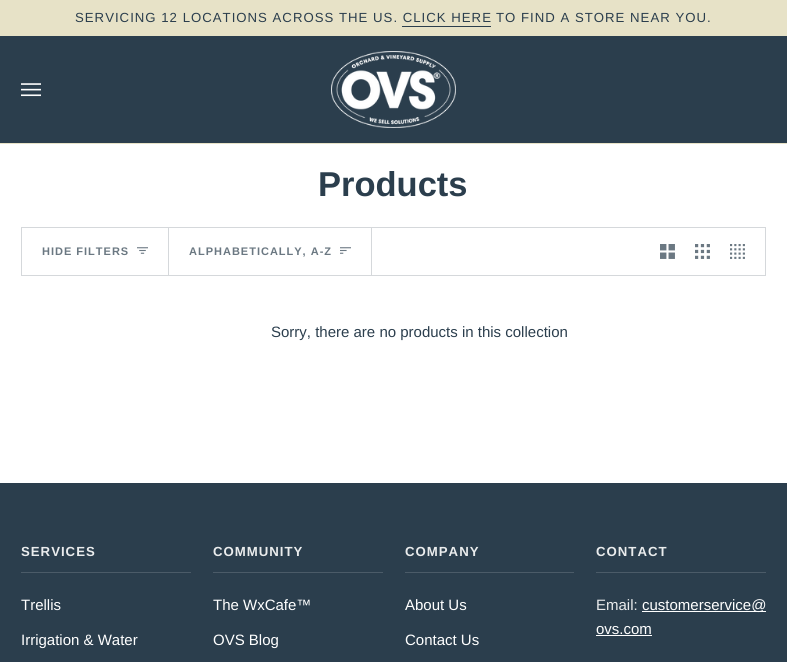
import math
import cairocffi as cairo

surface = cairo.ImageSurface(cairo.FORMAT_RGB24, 787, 662)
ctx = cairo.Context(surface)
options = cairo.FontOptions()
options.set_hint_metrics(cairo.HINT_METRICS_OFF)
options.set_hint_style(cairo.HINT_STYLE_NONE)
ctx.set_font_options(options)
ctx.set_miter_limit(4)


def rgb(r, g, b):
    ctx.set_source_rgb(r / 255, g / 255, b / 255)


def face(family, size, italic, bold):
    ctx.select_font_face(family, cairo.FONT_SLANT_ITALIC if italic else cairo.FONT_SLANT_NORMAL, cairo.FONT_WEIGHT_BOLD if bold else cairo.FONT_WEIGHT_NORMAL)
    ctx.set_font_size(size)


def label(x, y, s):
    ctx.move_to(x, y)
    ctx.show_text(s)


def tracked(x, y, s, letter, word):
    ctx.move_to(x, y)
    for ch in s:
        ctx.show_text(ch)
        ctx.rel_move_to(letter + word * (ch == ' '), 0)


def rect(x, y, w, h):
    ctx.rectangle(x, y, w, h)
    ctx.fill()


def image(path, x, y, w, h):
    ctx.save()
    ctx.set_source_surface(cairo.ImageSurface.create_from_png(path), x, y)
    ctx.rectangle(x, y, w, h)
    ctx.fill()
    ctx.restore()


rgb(255, 255, 255)
ctx.paint()
rgb(231, 226, 199)
rect(0, 0, 787, 36)
face('Liberation Sans', 13.2, 0, 0)
rgb(43, 62, 77)
tracked(75, 22, 'SERVICING 12 LOCATIONS ACROSS THE US. CLICK HERE', 1, 0)
tracked(496, 22, 'TO FIND A STORE NEAR YOU.', 1, 0)
rect(402, 26, 89, 1)
rect(0, 36, 787, 107)
rgb(231, 226, 199)
rect(0, 143, 787, 1)
image('image0.png', 21, 83, 20, 14)
image('image1.png', 331, 51, 125, 77)
face('Liberation Sans', 34.5, 0, 1)
rgb(43, 62, 77)
label(318, 196, 'Products')
ctx.rectangle(21.5, 227.5, 744, 48)
rgb(213, 216, 219)
ctx.set_line_width(1)
ctx.stroke()
rect(168, 228, 1, 47)
face('Liberation Sans', 11, 0, 1)
rgb(107, 120, 130)
tracked(42, 255, 'HIDE FILTERS', 1, 0)
image('image2.png', 137, 247, 11, 7)
rgb(213, 216, 219)
rect(371, 228, 1, 47)
rgb(107, 120, 130)
tracked(189, 255, 'ALPHABETICALLY, A-Z', 1, 0)
image('image3.png', 340, 247, 11, 7)
image('image4.png', 660, 244, 15, 15)
image('image5.png', 695, 244, 15, 15)
image('image6.png', 730, 244, 15, 15)
face('Liberation Sans', 15, 0, 0)
rgb(43, 62, 77)
label(271, 337, 'Sorry, there are no products in this collection')
rect(0, 483, 787, 179)
rgb(75, 91, 104)
rect(21, 572, 170, 1)
face('Liberation Sans', 13.2, 0, 1)
rgb(234, 236, 237)
tracked(21, 556, 'SERVICES', 1, 0)
face('Liberation Sans', 15, 0, 0)
rgb(255, 255, 255)
label(21, 610, 'Trellis')
label(21, 645, 'Irrigation & Water')
rgb(75, 91, 104)
rect(213, 572, 170, 1)
face('Liberation Sans', 13.2, 0, 1)
rgb(234, 236, 237)
tracked(213, 556, 'COMMUNITY', 1, 0)
face('Liberation Sans', 15, 0, 0)
rgb(255, 255, 255)
label(213, 610, 'The WxCafe™')
label(213, 645, 'OVS Blog')
rgb(75, 91, 104)
rect(405, 572, 169, 1)
face('Liberation Sans', 13.2, 0, 1)
rgb(234, 236, 237)
tracked(405, 556, 'COMPANY', 1, 0)
face('Liberation Sans', 15, 0, 0)
rgb(255, 255, 255)
label(405, 610, 'About Us')
label(405, 645, 'Contact Us')
rgb(75, 91, 104)
rect(596, 572, 170, 1)
face('Liberation Sans', 13.2, 0, 1)
rgb(234, 236, 237)
tracked(596, 556, 'CONTACT', 1, 0)
face('Liberation Sans', 15, 0, 0)
label(596, 610, 'Email:')
rgb(255, 255, 255)
rect(642, 611, 124, 1)
label(642, 610, 'customerservice@')
label(596, 634, 'ovs.com')
rect(596, 635, 56, 1)
surface.write_to_png('render.png')
